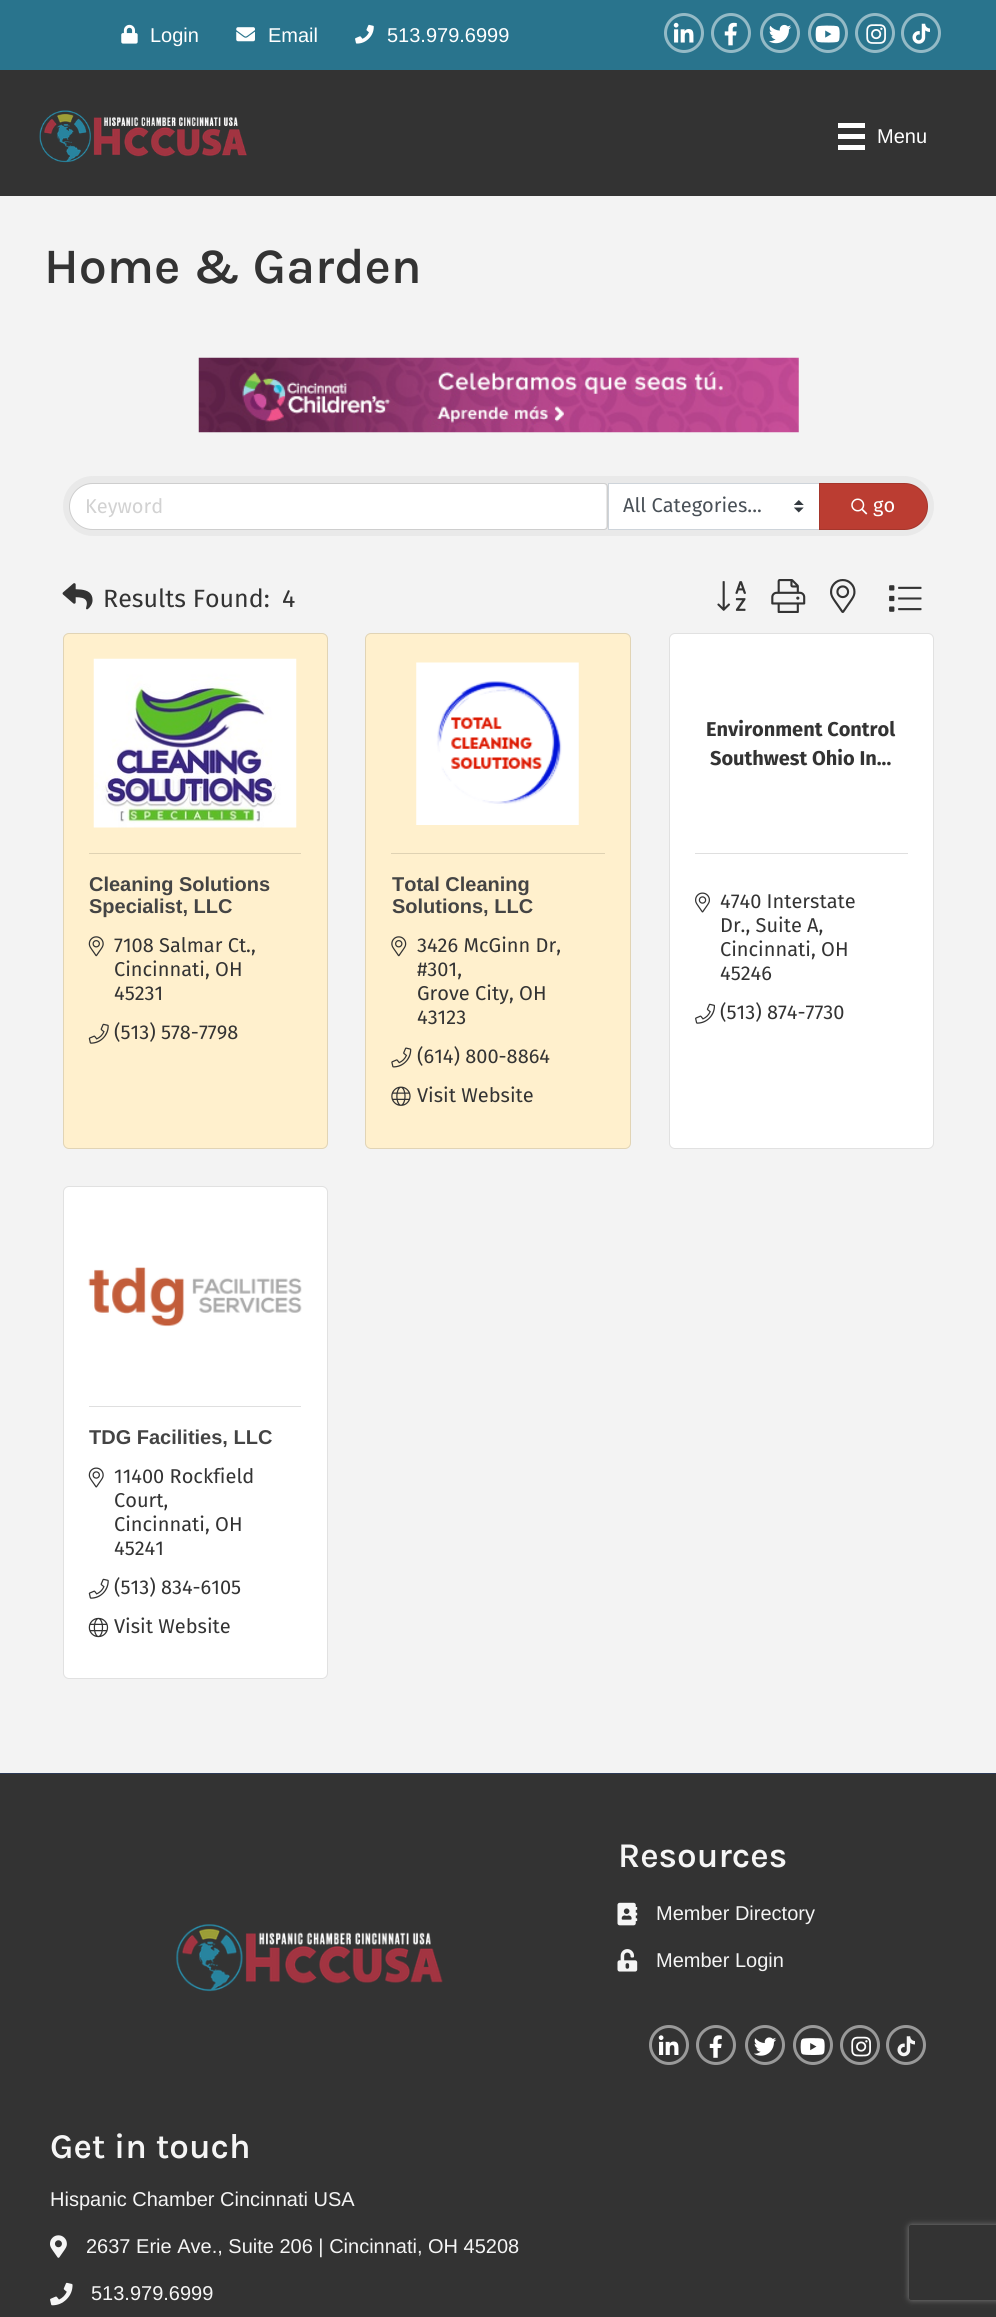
import math
import cairocffi as cairo

surface = cairo.ImageSurface(cairo.FORMAT_RGB24, 996, 2317)
ctx = cairo.Context(surface)
options = cairo.FontOptions()
options.set_hint_metrics(cairo.HINT_METRICS_OFF)
options.set_hint_style(cairo.HINT_STYLE_NONE)
ctx.set_font_options(options)
ctx.set_miter_limit(4)


def rgb(r, g, b):
    ctx.set_source_rgb(r / 255, g / 255, b / 255)


def face(family, size, italic, bold):
    ctx.select_font_face(family, cairo.FONT_SLANT_ITALIC if italic else cairo.FONT_SLANT_NORMAL, cairo.FONT_WEIGHT_BOLD if bold else cairo.FONT_WEIGHT_NORMAL)
    ctx.set_font_size(size)


def label(x, y, s):
    ctx.move_to(x, y)
    ctx.show_text(s)


def rect(x, y, w, h):
    ctx.rectangle(x, y, w, h)
    ctx.fill()


def rrect(x, y, w, h, r):
    ctx.new_sub_path()
    for i, (u, v) in enumerate([(x + w - r, y + h - r), (x + r, y + h - r), (x + r, y + r), (x + w - r, y + r)]):
        ctx.arc(u, v, r, i * math.pi / 2, (i + 1) * math.pi / 2)
    ctx.close_path()


def soft_shadow(x, y, w, h, r, blur, alpha):
    ctx.push_group_with_content(cairo.CONTENT_ALPHA)
    ctx.set_operator(cairo.OPERATOR_SOURCE)
    for i in range(15, -16, -2):
        e = blur * i / 6
        if min(w, h) + 2 * e > 0:
            ctx.set_source_rgba(0, 0, 0, alpha * math.erfc((i - 1) / 8.5) / 2)
            rrect(x - e, y - e, w + 2 * e, h + 2 * e, max(0, min(r + e + blur * .6, min(w, h) / 2 + e)))
            ctx.fill()
    ctx.mask(ctx.pop_group())


def image(path, x, y, w, h):
    ctx.save()
    ctx.set_source_surface(cairo.ImageSurface.create_from_png(path), x, y)
    ctx.rectangle(x, y, w, h)
    ctx.fill()
    ctx.restore()


rgb(51, 51, 51)
ctx.paint()
rgb(41, 116, 141)
rect(0, 0, 996, 70)
image('image0.png', 121, 24, 17, 20)
face('Liberation Sans', 20, 0, 0)
rgb(255, 255, 255)
label(150, 42, 'Login')
image('image1.png', 236, 27, 19, 15)
label(268, 42, 'Email')
image('image2.png', 355, 24, 19, 20)
label(387, 42, '513.979.6999')
ctx.new_path()
ctx.arc(684, 33, 18.5, 0, 2 * math.pi)
rgb(148, 186, 198)
ctx.set_line_width(3)
ctx.stroke()
image('image3.png', 673, 22, 21, 21)
ctx.arc(731, 33, 18.5, 0, 2 * math.pi)
ctx.stroke()
image('image4.png', 724, 22, 13, 24)
ctx.arc(780, 33, 18.5, 0, 2 * math.pi)
ctx.stroke()
image('image5.png', 769, 24, 23, 20)
ctx.arc(828, 33, 18.5, 0, 2 * math.pi)
ctx.stroke()
image('image6.png', 815, 25, 25, 18)
ctx.arc(875, 33, 18.5, 0, 2 * math.pi)
ctx.stroke()
image('image7.png', 866, 24, 20, 20)
ctx.arc(921, 33, 18.5, 0, 2 * math.pi)
ctx.stroke()
image('image8.png', 912, 23, 18, 21)
image('image9.png', 39, 110, 208, 53)
rgb(255, 255, 255)
rect(838, 123, 27, 5)
rect(838, 134, 27, 5)
rect(838, 145, 27, 5)
label(877, 143, 'Menu')
rgb(243, 243, 243)
rect(0, 196, 996, 1577)
face('Karla SemiBold', 50, 0, 0)
rgb(51, 51, 51)
label(44, 283, 'Home & Garden')
image('image10.png', 198, 357, 601, 76)
rgb(233, 233, 233)
rrect(63, 476, 871, 60, 30)
ctx.fill()
rgb(255, 255, 255)
ctx.new_path()
ctx.move_to(92.5, 484)
ctx.line_to(603.5, 484)
ctx.curve_to(605, 484, 606, 485, 606, 486.5)
ctx.line_to(606, 526.5)
ctx.curve_to(606, 528, 605, 529, 603.5, 529)
ctx.line_to(92.5, 529)
ctx.curve_to(80, 529, 70, 519, 70, 506.5)
ctx.curve_to(70, 494, 80, 484, 92.5, 484)
ctx.close_path()
ctx.fill()
ctx.new_path()
ctx.move_to(92.5, 483.5)
ctx.line_to(604, 483.5)
ctx.curve_to(606, 483.5, 607.5, 485, 607.5, 487)
ctx.line_to(607.5, 526)
ctx.curve_to(607.5, 528, 606, 529.5, 604, 529.5)
ctx.line_to(92.5, 529.5)
ctx.curve_to(80, 529.5, 69.5, 519, 69.5, 506.5)
ctx.curve_to(69.5, 494, 80, 483.5, 92.5, 483.5)
ctx.close_path()
ctx.set_source_rgba(0, 0, 0, 0.12)
ctx.set_line_width(1)
ctx.stroke()
face('Fira Sans', 20, 0, 0)
rgb(210, 210, 210)
label(85, 513, 'Keyword')
rgb(255, 255, 255)
rect(609, 484, 210, 45)
image('image11.png', 794, 500, 10, 13)
ctx.rectangle(608.5, 483.5, 211, 46)
rgb(206, 212, 218)
ctx.stroke()
rgb(73, 80, 87)
label(623, 512, 'All Categories...')
rgb(187, 61, 50)
ctx.new_path()
ctx.move_to(819, 483)
ctx.line_to(904.5, 483)
ctx.curve_to(917.5, 483, 928, 493.5, 928, 506.5)
ctx.curve_to(928, 519.5, 917.5, 530, 904.5, 530)
ctx.line_to(819, 530)
ctx.close_path()
ctx.fill()
ctx.new_path()
ctx.move_to(819.5, 483.5)
ctx.line_to(904.5, 483.5)
ctx.curve_to(917, 483.5, 927.5, 494, 927.5, 506.5)
ctx.curve_to(927.5, 519, 917, 529.5, 904.5, 529.5)
ctx.line_to(819.5, 529.5)
ctx.close_path()
ctx.set_source_rgba(0, 0, 0, 0.12)
ctx.stroke()
image('image12.png', 851, 498, 17, 17)
rgb(255, 255, 255)
label(873, 512, 'go')
image('image13.png', 62, 583, 31, 27)
face('Fira Sans', 25, 0, 0)
rgb(51, 51, 51)
label(103, 607, 'Results Found:')
label(282, 607, '4')
image('image14.png', 717, 581, 29, 30)
image('image15.png', 771, 579, 35, 34)
image('image16.png', 830, 579, 26, 34)
image('image17.png', 889, 585, 33, 27)
rgb(255, 240, 205)
rrect(63, 633, 265, 516, 6)
ctx.fill()
rrect(63.5, 633.5, 264, 515, 5.5)
ctx.set_source_rgba(0, 0, 0, 0.12)
ctx.stroke()
image('image18.png', 93, 658, 204, 170)
rgb(223, 210, 179)
rect(89, 853, 212, 1)
face('Liberation Sans', 20, 0, 1)
rgb(68, 68, 68)
label(89, 891, 'Cleaning Solutions')
label(89, 913, 'Specialist, LLC')
image('image19.png', 88, 936, 16, 21)
face('Fira Sans', 20, 0, 0)
rgb(51, 51, 51)
label(114, 952, '7108 Salmar Ct.,')
label(114, 976, 'Cincinnati, OH')
label(114, 1000, '45231')
image('image20.png', 88, 1023, 21, 21)
label(114, 1039, '(513) 578-7798')
rgb(255, 240, 205)
rrect(365, 633, 266, 516, 6)
ctx.fill()
rrect(365.5, 633.5, 265, 515, 5.5)
ctx.set_source_rgba(0, 0, 0, 0.12)
ctx.stroke()
image('image21.png', 416, 662, 163, 163)
rgb(223, 210, 179)
rect(391, 853, 214, 1)
face('Liberation Sans', 20, 0, 1)
rgb(68, 68, 68)
label(392, 891, 'Total Cleaning')
label(392, 913, 'Solutions, LLC')
image('image22.png', 391, 936, 16, 21)
face('Fira Sans', 20, 0, 0)
rgb(51, 51, 51)
label(417, 952, '3426 McGinn Dr,')
label(417, 976, '#301,')
label(417, 1000, 'Grove City, OH')
label(417, 1024, '43123')
image('image23.png', 391, 1047, 21, 21)
label(417, 1063, '(614) 800-8864')
image('image24.png', 391, 1086, 20, 20)
label(417, 1102, 'Visit Website')
rgb(255, 255, 255)
rrect(669, 633, 265, 516, 6)
ctx.fill()
rrect(669.5, 633.5, 264, 515, 5.5)
ctx.set_source_rgba(0, 0, 0, 0.12)
ctx.stroke()
face('Fira Sans', 20, 0, 1)
rgb(51, 51, 51)
label(706, 736, 'Environment Control')
label(710, 765, 'Southwest Ohio In...')
rgb(223, 223, 223)
rect(695, 853, 213, 1)
image('image25.png', 695, 892, 15, 21)
face('Fira Sans', 20, 0, 0)
rgb(51, 51, 51)
label(720, 908, '4740 Interstate')
label(720, 932, 'Dr., Suite A,')
label(720, 956, 'Cincinnati, OH')
label(720, 980, '45246')
image('image26.png', 695, 1003, 20, 21)
label(720, 1019, '(513) 874-7730')
rgb(255, 255, 255)
rrect(63, 1186, 265, 493, 6)
ctx.fill()
rrect(63.5, 1186.5, 264, 492, 5.5)
ctx.set_source_rgba(0, 0, 0, 0.12)
ctx.stroke()
image('image27.png', 88, 1267, 214, 60)
rgb(223, 223, 223)
rect(89, 1406, 212, 1)
face('Liberation Sans', 20, 0, 1)
rgb(68, 68, 68)
label(89, 1444, 'TDG Facilities, LLC')
image('image28.png', 88, 1467, 16, 21)
face('Fira Sans', 20, 0, 0)
rgb(51, 51, 51)
label(114, 1483, '11400 Rockfield')
label(114, 1507, 'Court,')
label(114, 1531, 'Cincinnati, OH')
label(114, 1555, '45241')
image('image29.png', 88, 1578, 21, 21)
label(114, 1594, '(513) 834-6105')
image('image30.png', 88, 1617, 21, 21)
label(114, 1633, 'Visit Website')
rgb(44, 58, 86)
rect(0, 1773, 996, 1)
image('image31.png', 176, 1924, 267, 68)
face('Karla SemiBold', 35, 0, 0)
rgb(245, 245, 245)
label(618, 1867, 'Resources')
image('image32.png', 617, 1902, 21, 24)
face('Liberation Sans', 20, 0, 0)
label(656, 1920, 'Member Directory')
image('image33.png', 617, 1949, 21, 23)
label(656, 1967, 'Member Login')
ctx.new_path()
ctx.arc(669, 2045, 18.5, 0, 2 * math.pi)
rgb(153, 153, 153)
ctx.set_line_width(3)
ctx.stroke()
image('image34.png', 658, 2035, 21, 20)
ctx.arc(716, 2045, 18.5, 0, 2 * math.pi)
ctx.stroke()
image('image35.png', 709, 2035, 13, 23)
ctx.arc(765, 2045, 18.5, 0, 2 * math.pi)
ctx.stroke()
image('image36.png', 754, 2037, 23, 19)
ctx.arc(813, 2045, 18.5, 0, 2 * math.pi)
ctx.stroke()
image('image37.png', 800, 2038, 25, 17)
ctx.arc(860, 2045, 18.5, 0, 2 * math.pi)
ctx.stroke()
image('image38.png', 851, 2036, 20, 21)
ctx.arc(906, 2045, 18.5, 0, 2 * math.pi)
ctx.stroke()
image('image39.png', 897, 2036, 18, 21)
face('Karla SemiBold', 35, 0, 0)
rgb(245, 245, 245)
label(50, 2158, 'Get in touch')
face('Liberation Sans', 20, 0, 0)
label(50, 2206, 'Hispanic Chamber Cincinnati USA')
image('image40.png', 50, 2235, 17, 23)
label(86, 2253, '2637 Erie Ave., Suite 206 | Cincinnati, OH 45208')
image('image41.png', 50, 2282, 23, 24)
label(91, 2300, '513.979.6999')
ctx.save()
ctx.set_fill_rule(cairo.FILL_RULE_EVEN_ODD)
ctx.new_path()
ctx.move_to(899, 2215)
ctx.line_to(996, 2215)
ctx.line_to(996, 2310)
ctx.line_to(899, 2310)
ctx.close_path()
ctx.move_to(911.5, 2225)
ctx.line_to(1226.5, 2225)
ctx.curve_to(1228, 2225, 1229, 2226, 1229, 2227.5)
ctx.line_to(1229, 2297.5)
ctx.curve_to(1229, 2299, 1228, 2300, 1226.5, 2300)
ctx.line_to(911.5, 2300)
ctx.curve_to(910, 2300, 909, 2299, 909, 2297.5)
ctx.line_to(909, 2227.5)
ctx.curve_to(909, 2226, 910, 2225, 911.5, 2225)
ctx.close_path()
ctx.clip()
rgb(128, 128, 128)
soft_shadow(909, 2225, 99, 75, 2.5, 3, 1)
ctx.restore()
surface.write_to_png('render.png')
